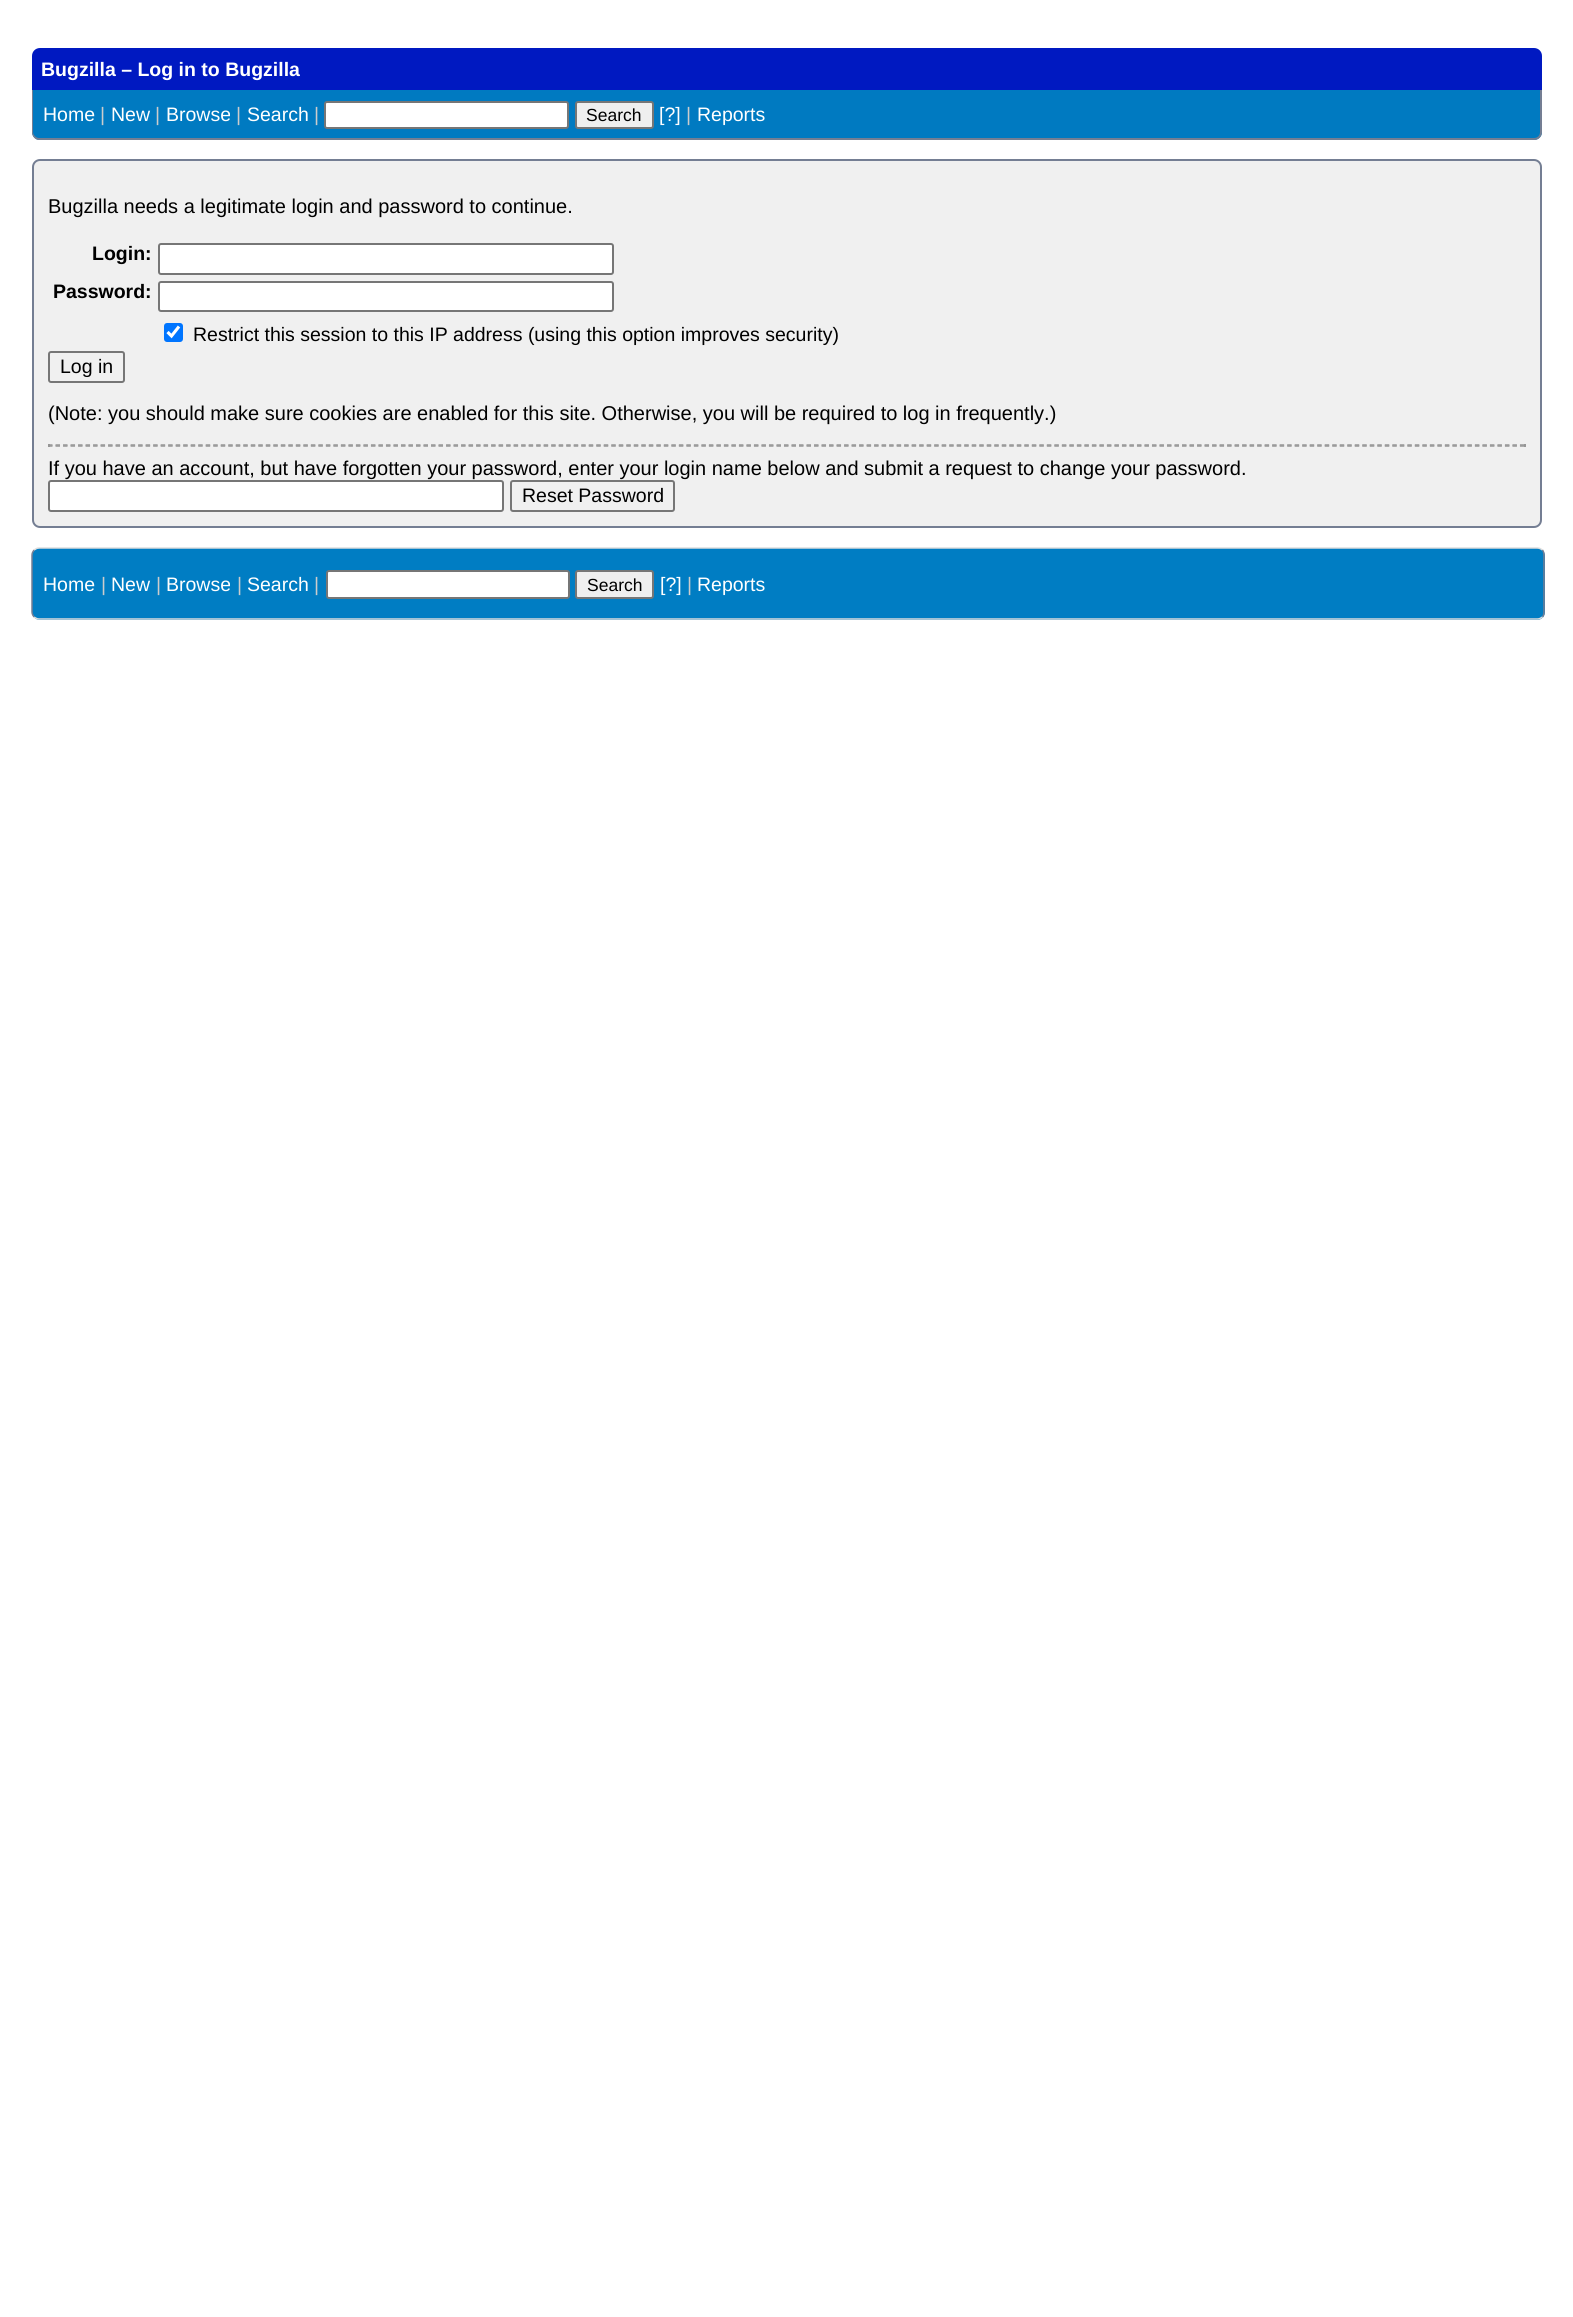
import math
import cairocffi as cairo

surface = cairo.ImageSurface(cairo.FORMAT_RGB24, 1573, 2317)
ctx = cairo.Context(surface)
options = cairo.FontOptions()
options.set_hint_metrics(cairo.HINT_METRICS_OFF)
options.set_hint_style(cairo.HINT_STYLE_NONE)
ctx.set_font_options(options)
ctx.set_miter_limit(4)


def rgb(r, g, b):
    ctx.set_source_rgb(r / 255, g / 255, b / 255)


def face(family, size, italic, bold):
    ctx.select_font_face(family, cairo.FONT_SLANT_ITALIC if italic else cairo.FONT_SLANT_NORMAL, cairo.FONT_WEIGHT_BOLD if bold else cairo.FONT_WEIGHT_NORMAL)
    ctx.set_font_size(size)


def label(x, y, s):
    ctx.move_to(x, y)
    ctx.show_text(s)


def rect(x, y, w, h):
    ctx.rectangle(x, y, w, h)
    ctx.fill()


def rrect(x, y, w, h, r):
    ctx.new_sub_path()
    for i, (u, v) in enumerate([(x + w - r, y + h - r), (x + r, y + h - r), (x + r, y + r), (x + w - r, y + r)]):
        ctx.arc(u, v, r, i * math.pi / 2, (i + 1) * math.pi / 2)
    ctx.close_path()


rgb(255, 255, 255)
ctx.paint()
rgb(0, 25, 193)
ctx.new_path()
ctx.move_to(40, 48)
ctx.line_to(1534, 48)
ctx.curve_to(1538.5, 48, 1542, 51.5, 1542, 56)
ctx.line_to(1542, 90)
ctx.line_to(32, 90)
ctx.line_to(32, 56)
ctx.curve_to(32, 51.5, 35.5, 48, 40, 48)
ctx.close_path()
ctx.fill()
face('Liberation Sans', 19.5, 0, 1)
rgb(255, 255, 255)
label(41, 76, 'Bugzilla – Log in to Bugzilla')
rgb(0, 122, 193)
ctx.new_path()
ctx.move_to(32, 90)
ctx.line_to(1542, 90)
ctx.line_to(1542, 132)
ctx.curve_to(1542, 136.5, 1538.5, 140, 1534, 140)
ctx.line_to(40, 140)
ctx.curve_to(35.5, 140, 32, 136.5, 32, 132)
ctx.close_path()
ctx.fill()
rgb(116, 126, 147)
ctx.set_fill_rule(cairo.FILL_RULE_EVEN_ODD)
ctx.new_path()
ctx.move_to(32, 90)
ctx.line_to(1542, 90)
ctx.line_to(1542, 132)
ctx.curve_to(1542, 136, 1539, 140, 1534, 140)
ctx.line_to(39, 140)
ctx.curve_to(35, 140, 32, 136, 32, 132)
ctx.close_path()
ctx.move_to(33, 90)
ctx.line_to(1540, 90)
ctx.line_to(1540, 132)
ctx.curve_to(1540, 135, 1538, 138, 1534, 138)
ctx.line_to(39, 138)
ctx.curve_to(36, 138, 33, 135, 33, 132)
ctx.close_path()
ctx.fill()
face('Liberation Sans', 19.5, 0, 0)
rgb(255, 255, 255)
label(43, 121, 'Home')
rgb(204, 204, 204)
label(100, 121, '|')
rgb(255, 255, 255)
label(111, 121, 'New')
rgb(204, 204, 204)
label(155, 121, '|')
rgb(255, 255, 255)
label(166, 121, 'Browse')
rgb(204, 204, 204)
label(236, 121, '|')
rgb(255, 255, 255)
label(247, 121, 'Search')
rgb(204, 204, 204)
label(314, 121, '|')
rgb(255, 255, 255)
rrect(325, 102, 243, 26, 2)
ctx.fill_preserve()
rgb(118, 118, 118)
ctx.stroke()
rgb(239, 239, 239)
rrect(576, 102, 77, 26, 2)
ctx.fill_preserve()
rgb(118, 118, 118)
ctx.stroke()
face('Liberation Sans', 17.5, 0, 0)
rgb(0, 0, 0)
label(586, 121, 'Search')
face('Liberation Sans', 19.5, 0, 0)
rgb(255, 255, 255)
label(659, 121, '[?]')
rgb(204, 204, 204)
label(686, 121, '|')
rgb(255, 255, 255)
label(697, 121, 'Reports')
rgb(240, 240, 240)
rrect(33, 160, 1508, 367, 7)
ctx.fill_preserve()
rgb(116, 126, 147)
ctx.stroke()
face('Liberation Sans', 20, 0, 0)
rgb(0, 0, 0)
label(48, 213, 'Bugzilla needs a legitimate login and password to continue.')
face('Liberation Sans', 19.5, 0, 1)
label(92, 260, 'Login:')
rgb(255, 255, 255)
rrect(159, 244, 454, 30, 2)
ctx.fill_preserve()
rgb(118, 118, 118)
ctx.stroke()
rgb(0, 0, 0)
label(53, 298, 'Password:')
rgb(255, 255, 255)
rrect(159, 282, 454, 29, 2)
ctx.fill_preserve()
rgb(118, 118, 118)
ctx.stroke()
rgb(0, 117, 255)
rrect(164, 323, 19, 19, 3)
ctx.fill()
ctx.new_path()
ctx.move_to(167.5, 332)
ctx.line_to(171.5, 336)
ctx.line_to(179, 326.5)
rgb(255, 255, 255)
ctx.set_line_width(3.1)
ctx.stroke()
face('Liberation Sans', 19.5, 0, 0)
rgb(0, 0, 0)
label(193, 341, 'Restrict this session to this IP address (using this option improves security)')
rrect(49, 352, 75, 30, 2)
rgb(118, 118, 118)
ctx.set_line_width(2)
ctx.stroke()
rgb(0, 0, 0)
label(60, 373, 'Log in')
face('Liberation Sans', 20, 0, 0)
label(48, 420, '(Note: you should make sure cookies are enabled for this site. Otherwise, you will be required to log in frequently.)')
ctx.new_path()
ctx.move_to(48, 445)
ctx.line_to(1525.5, 445)
rgb(150, 150, 150)
ctx.set_line_width(1.5)
ctx.set_dash([4.5, 3.01])
ctx.stroke()
rect(1524, 444, 2, 3)
ctx.new_path()
ctx.move_to(48, 446)
ctx.line_to(1525.5, 446)
ctx.stroke()
rect(48, 444, 2, 3)
rgb(0, 0, 0)
label(48, 475, 'If you have an account, but have forgotten your password, enter your login name below and submit a request to change your password.')
rgb(255, 255, 255)
rrect(49, 481, 454, 30, 2)
ctx.fill_preserve()
rgb(118, 118, 118)
ctx.set_line_width(2)
ctx.set_dash([])
ctx.stroke()
rrect(511, 481, 163, 30, 2)
ctx.stroke()
face('Liberation Sans', 19.5, 0, 0)
rgb(0, 0, 0)
label(522, 502, 'Reset Password')
rgb(0, 125, 195)
rrect(32, 548, 1513, 72, 8)
ctx.fill()
ctx.new_path()
ctx.move_to(34, 550)
ctx.curve_to(35.5, 549, 37, 548, 39, 548)
ctx.line_to(1537.5, 548)
ctx.curve_to(1539.5, 548, 1541, 549, 1542.5, 550)
rgb(221, 221, 221)
ctx.set_line_width(1.5)
ctx.stroke()
ctx.new_path()
ctx.move_to(1542.5, 550)
ctx.curve_to(1543.5, 551.5, 1544, 553, 1544, 555)
ctx.line_to(1544, 612)
ctx.curve_to(1544, 614, 1543.5, 615.5, 1542.5, 617)
rgb(116, 126, 147)
ctx.stroke()
ctx.new_path()
ctx.move_to(1542.5, 617)
ctx.curve_to(1541, 618, 1539.5, 619, 1537.5, 619)
ctx.line_to(39, 619)
ctx.curve_to(37, 619, 35.5, 618, 34, 617)
rgb(221, 221, 221)
ctx.stroke()
ctx.new_path()
ctx.move_to(34, 617)
ctx.curve_to(33, 615.5, 32, 614, 32, 612)
ctx.line_to(32, 555)
ctx.curve_to(32, 553, 33, 551.5, 34, 550)
rgb(116, 126, 147)
ctx.stroke()
rgb(255, 255, 255)
label(43, 591, 'Home')
rgb(204, 204, 204)
label(101, 591, '|')
rgb(255, 255, 255)
label(111, 591, 'New')
rgb(204, 204, 204)
label(156, 591, '|')
rgb(255, 255, 255)
label(166, 591, 'Browse')
rgb(204, 204, 204)
label(237, 591, '|')
rgb(255, 255, 255)
label(247, 591, 'Search')
rgb(204, 204, 204)
label(314, 591, '|')
rgb(255, 255, 255)
rrect(327, 571, 242, 27, 2)
ctx.fill_preserve()
rgb(118, 118, 118)
ctx.set_line_width(2)
ctx.stroke()
rgb(239, 239, 239)
rrect(576, 571, 77, 27, 2)
ctx.fill_preserve()
rgb(118, 118, 118)
ctx.stroke()
face('Liberation Sans', 17.5, 0, 0)
rgb(0, 0, 0)
label(587, 591, 'Search')
face('Liberation Sans', 19.5, 0, 0)
rgb(255, 255, 255)
label(660, 591, '[?]')
rgb(204, 204, 204)
label(687, 591, '|')
rgb(255, 255, 255)
label(697, 591, 'Reports')
surface.write_to_png('render.png')
